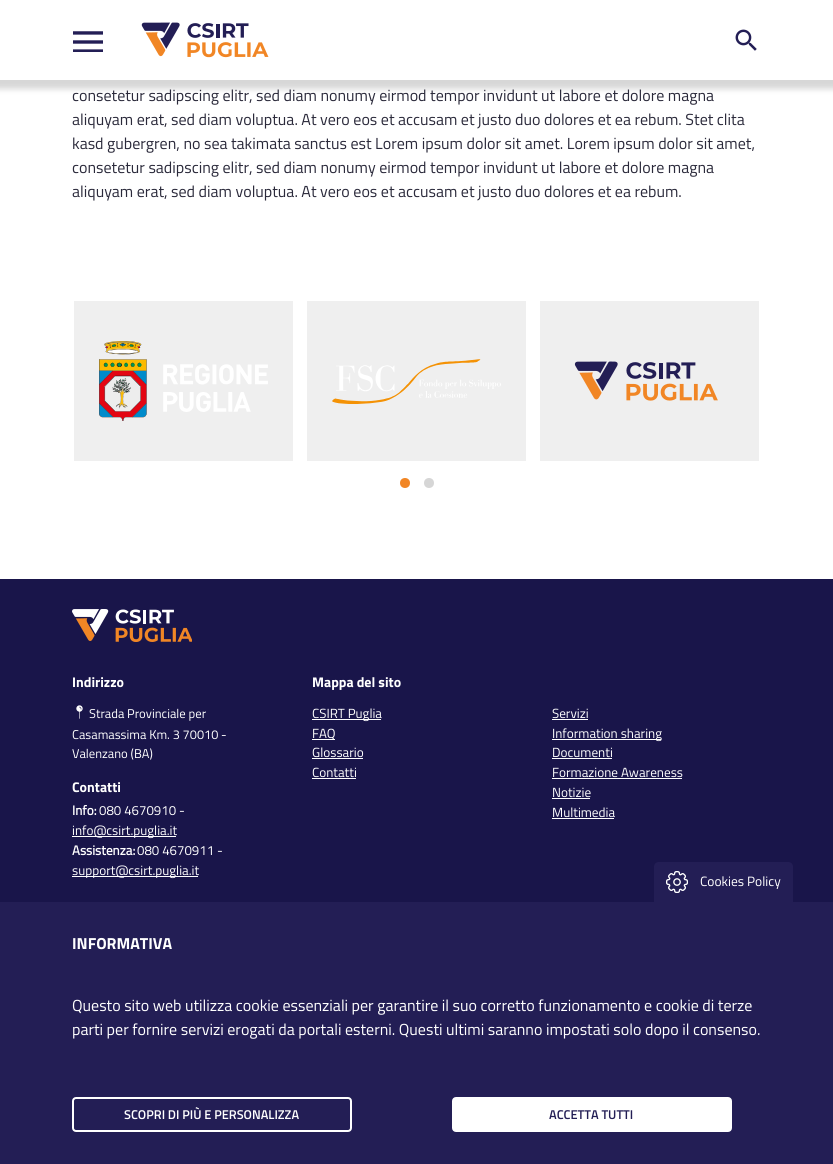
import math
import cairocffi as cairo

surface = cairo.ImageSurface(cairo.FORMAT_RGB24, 833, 1164)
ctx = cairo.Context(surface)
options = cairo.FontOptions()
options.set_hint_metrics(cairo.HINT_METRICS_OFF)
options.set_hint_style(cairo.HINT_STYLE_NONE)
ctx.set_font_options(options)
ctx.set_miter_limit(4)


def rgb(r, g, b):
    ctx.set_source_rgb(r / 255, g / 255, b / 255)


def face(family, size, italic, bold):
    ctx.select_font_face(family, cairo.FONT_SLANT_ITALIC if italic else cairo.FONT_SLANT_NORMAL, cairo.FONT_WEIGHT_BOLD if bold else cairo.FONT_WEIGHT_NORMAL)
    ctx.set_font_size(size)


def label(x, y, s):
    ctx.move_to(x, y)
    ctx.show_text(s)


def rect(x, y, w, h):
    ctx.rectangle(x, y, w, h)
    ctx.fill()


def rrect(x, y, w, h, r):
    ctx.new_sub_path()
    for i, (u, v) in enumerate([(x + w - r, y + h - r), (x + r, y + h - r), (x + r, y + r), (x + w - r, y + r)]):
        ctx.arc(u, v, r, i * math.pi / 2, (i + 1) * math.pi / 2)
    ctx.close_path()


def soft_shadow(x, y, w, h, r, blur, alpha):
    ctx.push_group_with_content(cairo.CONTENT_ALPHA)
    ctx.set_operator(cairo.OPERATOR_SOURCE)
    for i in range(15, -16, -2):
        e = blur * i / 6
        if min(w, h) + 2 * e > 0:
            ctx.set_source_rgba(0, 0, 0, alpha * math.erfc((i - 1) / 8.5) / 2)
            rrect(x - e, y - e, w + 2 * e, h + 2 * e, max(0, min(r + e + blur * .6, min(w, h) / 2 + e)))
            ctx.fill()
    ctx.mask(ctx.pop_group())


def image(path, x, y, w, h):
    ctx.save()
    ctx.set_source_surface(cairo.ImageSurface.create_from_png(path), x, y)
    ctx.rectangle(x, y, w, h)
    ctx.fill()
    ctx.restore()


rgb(255, 255, 255)
ctx.paint()
rgb(0, 0, 0)
soft_shadow(-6, -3, 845, 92, 0, 3, 0.16)
rgb(255, 255, 255)
rect(0, 0, 833, 80)
image('image0.png', 73, 31, 30, 21)
image('image1.png', 141, 22, 128, 36)
image('image2.png', 735, 29, 22, 22)
face('Titillium Web', 16, 0, 0)
rgb(43, 42, 59)
label(72, 101, 'consetetur sadipscing elitr, sed diam nonumy eirmod tempor invidunt ut labore et dolore magna')
label(72, 125, 'aliquyam erat, sed diam voluptua. At vero eos et accusam et justo duo dolores et ea rebum. Stet clita')
label(72, 149, 'kasd gubergren, no sea takimata sanctus est Lorem ipsum dolor sit amet. Lorem ipsum dolor sit amet,')
label(72, 173, 'consetetur sadipscing elitr, sed diam nonumy eirmod tempor invidunt ut labore et dolore magna')
label(72, 197, 'aliquyam erat, sed diam voluptua. At vero eos et accusam et justo duo dolores et ea rebum.')
rgb(239, 239, 239)
rect(74, 301, 219, 160)
image('image3.png', 99, 341, 169, 80)
rect(307, 301, 219, 160)
image('image4.png', 332, 359, 169, 45)
rect(540, 301, 219, 160)
image('image5.png', 574, 361, 144, 40)
rgb(241, 134, 37)
ctx.arc(405, 483, 5, 0, 2 * math.pi)
ctx.fill()
rgb(214, 214, 214)
ctx.arc(429, 483, 5, 0, 2 * math.pi)
ctx.fill()
rgb(25, 21, 74)
rect(0, 579, 833, 323)
image('image6.png', 72, 609, 120, 33)
face('Titillium Web', 14, 0, 1)
rgb(255, 255, 255)
label(72, 687, 'Indirizzo')
image('image7.png', 76, 705, 7, 14)
face('Titillium Web', 12.75, 0, 0)
label(89, 718, 'Strada Provinciale per')
label(72, 739, 'Casamassima Km. 3 70010 -')
label(72, 758, 'Valenzano (BA)')
face('Titillium Web', 14, 0, 1)
label(72, 792, 'Contatti')
face('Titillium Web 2', 13.25, 0, 1)
label(72, 815, 'Info:')
face('Titillium Web', 13.25, 0, 0)
label(99, 815, '080 4670910 -')
rect(72, 836, 104, 1)
label(72, 835, 'info@csirt.puglia.it')
face('Titillium Web 2', 13.25, 0, 1)
label(72, 855, 'Assistenza:')
face('Titillium Web', 13.25, 0, 0)
label(137, 855, '080 4670911 -')
rect(72, 876, 126, 1)
label(72, 875, 'support@csirt.puglia.it')
face('Titillium Web', 14, 0, 1)
label(312, 687, 'Mappa del sito')
rect(312, 719, 69, 1)
face('Titillium Web', 13.25, 0, 0)
label(312, 718, 'CSIRT Puglia')
rect(312, 739, 23, 1)
label(312, 738, 'FAQ')
label(312, 757, 'Glossario')
rect(312, 758, 51, 1)
label(312, 777, 'Contatti')
rect(312, 778, 44, 1)
label(552, 718, 'Servizi')
rect(552, 719, 36, 1)
rect(552, 739, 109, 1)
label(552, 738, 'Information sharing')
label(552, 757, 'Documenti')
rect(552, 758, 60, 1)
label(552, 777, 'Formazione Awareness')
rect(552, 778, 130, 1)
label(552, 797, 'Notizie')
rect(552, 798, 38, 1)
label(552, 817, 'Multimedia')
rect(552, 818, 62, 1)
rgb(35, 30, 85)
ctx.new_path()
ctx.move_to(659, 862)
ctx.line_to(788, 862)
ctx.curve_to(791, 862, 793, 864, 793, 867)
ctx.line_to(793, 902)
ctx.line_to(654, 902)
ctx.line_to(654, 867)
ctx.curve_to(654, 864, 656, 862, 659, 862)
ctx.close_path()
ctx.fill()
image('image8.png', 666, 871, 22, 22)
face('Titillium Web', 13.5, 0, 0)
rgb(255, 255, 255)
label(700, 886, 'Cookies Policy')
rgb(35, 30, 85)
rect(0, 902, 833, 262)
face('Titillium Web', 16, 0, 1)
rgb(255, 255, 255)
label(72, 949, 'INFORMATIVA')
face('Titillium Web', 16, 0, 0)
label(72, 1011, 'Questo sito web utilizza cookie essenziali per garantire il suo corretto funzionamento e cookie di terze')
label(72, 1035, 'parti per fornire servizi erogati da portali esterni. Questi ultimi saranno impostati solo dopo il consenso.')
rrect(73, 1098, 278, 33, 3)
ctx.stroke()
face('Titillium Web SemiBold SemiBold', 12.75, 0, 0)
label(124, 1119, 'SCOPRI DI PIÙ E PERSONALIZZA')
rrect(453, 1098, 278, 33, 3)
ctx.fill_preserve()
ctx.stroke()
rgb(35, 30, 85)
label(549, 1119, 'ACCETTA TUTTI')
surface.write_to_png('render.png')
